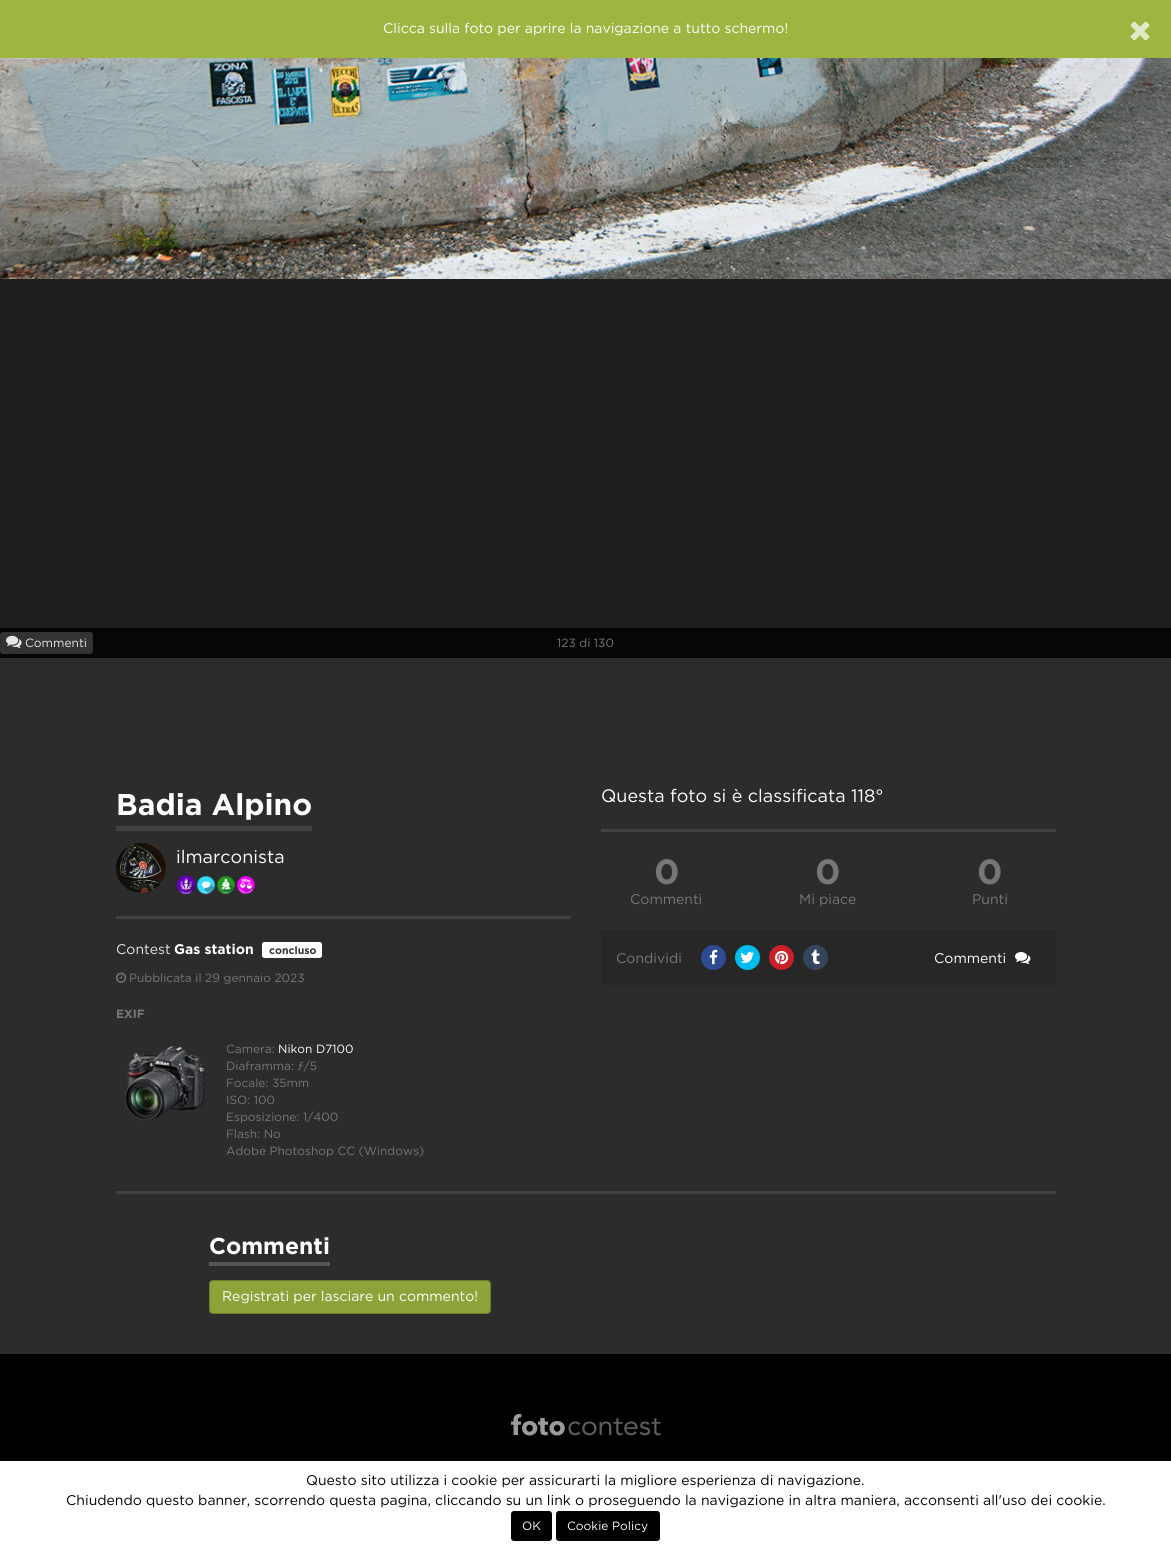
import math
import cairocffi as cairo

surface = cairo.ImageSurface(cairo.FORMAT_RGB24, 1171, 1551)
ctx = cairo.Context(surface)
options = cairo.FontOptions()
options.set_hint_metrics(cairo.HINT_METRICS_OFF)
options.set_hint_style(cairo.HINT_STYLE_NONE)
ctx.set_font_options(options)
ctx.set_miter_limit(4)


def rgb(r, g, b):
    ctx.set_source_rgb(r / 255, g / 255, b / 255)


def face(family, size, italic, bold):
    ctx.select_font_face(family, cairo.FONT_SLANT_ITALIC if italic else cairo.FONT_SLANT_NORMAL, cairo.FONT_WEIGHT_BOLD if bold else cairo.FONT_WEIGHT_NORMAL)
    ctx.set_font_size(size)


def label(x, y, s):
    ctx.move_to(x, y)
    ctx.show_text(s)


def rect(x, y, w, h):
    ctx.rectangle(x, y, w, h)
    ctx.fill()


def rrect(x, y, w, h, r):
    ctx.new_sub_path()
    for i, (u, v) in enumerate([(x + w - r, y + h - r), (x + r, y + h - r), (x + r, y + r), (x + w - r, y + r)]):
        ctx.arc(u, v, r, i * math.pi / 2, (i + 1) * math.pi / 2)
    ctx.close_path()


def image(path, x, y, w, h):
    ctx.save()
    ctx.set_source_surface(cairo.ImageSurface.create_from_png(path), x, y)
    ctx.rectangle(x, y, w, h)
    ctx.fill()
    ctx.restore()


rgb(44, 44, 44)
ctx.paint()
rgb(156, 182, 65)
rect(0, 0, 1171, 58)
face('Gotham', 14, 0, 0)
rgb(255, 255, 255)
label(383, 33, 'Clicca sulla foto per aprire la navigazione a tutto schermo!')
image('image0.png', 1130, 21, 20, 20)
rgb(31, 31, 31)
rect(0, 279, 1171, 349)
image('image1.png', 0, 58, 1171, 221)
rgb(6, 6, 6)
rect(0, 628, 1171, 30)
rgb(51, 51, 51)
rrect(0.5, 632.5, 92, 21, 2.5)
ctx.fill_preserve()
rgb(48, 48, 48)
ctx.set_line_width(1)
ctx.stroke()
image('image2.png', 6, 635, 16, 14)
face('Gotham', 12, 0, 0)
rgb(230, 230, 230)
label(25, 647, 'Commenti')
face('Gotham', 11.9, 0, 0)
rgb(119, 119, 119)
label(557, 647, '123 di 130')
face('Gotham', 30, 0, 1)
rgb(255, 255, 255)
label(116, 815, 'Badia Alpino')
rgb(65, 65, 65)
rect(116, 826, 196, 5)
image('image3.png', 116, 843, 50, 50)
face('Gotham', 18, 0, 0)
rgb(255, 255, 255)
label(176, 863, 'ilmarconista')
image('image4.png', 176, 875, 20, 20)
image('image5.png', 196, 875, 20, 20)
image('image6.png', 216, 875, 20, 20)
image('image7.png', 236, 875, 20, 20)
rgb(65, 65, 65)
rect(116, 916, 455, 3)
face('Gotham', 14, 0, 0)
rgb(230, 230, 230)
label(116, 954, 'Contest')
face('Gotham', 14, 0, 1)
rgb(255, 255, 255)
label(174, 954, 'Gas station')
rrect(262, 942, 60, 16, 2.5)
ctx.fill()
face('Gotham', 10.5, 0, 1)
rgb(51, 51, 51)
label(269, 954, 'concluso')
image('image8.png', 116, 972, 11, 11)
face('Gotham', 11.9, 0, 0)
rgb(119, 119, 119)
label(129, 982, 'Pubblicata il 29 gennaio 2023')
face('Gotham', 11.9, 0, 1)
label(116, 1018, 'EXIF')
image('image9.png', 125, 1046, 81, 75)
face('Gotham', 11.9, 0, 0)
label(226, 1053, 'Camera:')
rgb(255, 255, 255)
label(278, 1053, 'Nikon D7100')
rgb(119, 119, 119)
label(226, 1070, 'Diaframma: ƒ/5')
label(226, 1087, 'Focale: 35mm')
label(226, 1104, 'ISO: 100')
label(226, 1121, 'Esposizione: 1/400')
label(226, 1138, 'Flash: No')
label(226, 1155, 'Adobe Photoshop CC (Windows)')
face('Gotham', 18, 0, 0)
rgb(255, 255, 255)
label(601, 802, 'Questa foto si è classificata 118°')
rgb(65, 65, 65)
rect(601, 829, 455, 3)
face('Gotham', 35, 0, 1)
rgb(119, 119, 119)
label(654, 884, '0')
face('Gotham', 14, 0, 0)
label(630, 904, 'Commenti')
face('Gotham', 35, 0, 1)
label(815, 884, '0')
face('Gotham', 14, 0, 0)
label(799, 904, 'Mi piace')
face('Gotham', 35, 0, 1)
label(977, 884, '0')
face('Gotham', 14, 0, 0)
label(972, 904, 'Punti')
rgb(39, 39, 39)
rect(601, 930, 455, 55)
rgb(119, 119, 119)
label(616, 963, 'Condividi')
rgb(47, 75, 147)
ctx.new_path()
ctx.arc(713.5, 957.5, 12.5, 0, 2 * math.pi)
ctx.fill()
image('image10.png', 709, 949, 9, 16)
rgb(0, 189, 239)
ctx.arc(747.5, 957.5, 12.5, 0, 2 * math.pi)
ctx.fill()
image('image11.png', 740, 952, 14, 11)
rgb(203, 32, 39)
ctx.arc(781.5, 957.5, 12.5, 0, 2 * math.pi)
ctx.fill()
image('image12.png', 775, 950, 14, 15)
rgb(53, 70, 92)
ctx.arc(815.5, 957.5, 12.5, 0, 2 * math.pi)
ctx.fill()
image('image13.png', 811, 949, 9, 16)
rgb(255, 255, 255)
label(934, 963, 'Commenti')
image('image14.png', 1015, 952, 16, 13)
rgb(65, 65, 65)
rect(116, 1191, 940, 3)
face('Gotham', 23, 0, 1)
rgb(255, 255, 255)
label(209, 1254, 'Commenti')
rgb(86, 86, 86)
rect(209, 1262, 121, 4)
rgb(140, 163, 58)
rrect(209.5, 1280.5, 281, 33, 3.5)
ctx.fill_preserve()
rgb(108, 126, 45)
ctx.stroke()
face('Gotham', 14, 0, 0)
rgb(255, 255, 255)
label(222, 1301, 'Registrati per lasciare un commento!')
rgb(0, 0, 0)
rect(0, 1354, 1171, 107)
image('image15.png', 511, 1414, 150, 22)
rgb(255, 255, 255)
rect(0, 1461, 1171, 90)
rgb(0, 0, 0)
label(306, 1485, 'Questo sito utilizza i cookie per assicurarti la migliore esperienza di navigazione.')
label(66, 1505, 'Chiudendo questo banner, scorrendo questa pagina, cliccando su un link o proseguendo la navigazione in altra maniera, acconsenti all\'uso dei cookie.')
rrect(511, 1511, 41, 30, 3)
ctx.fill()
face('Gotham', 12, 0, 0)
rgb(255, 255, 255)
label(522, 1530, 'OK')
rgb(0, 0, 0)
rrect(556, 1511, 104, 30, 3)
ctx.fill()
rgb(255, 255, 255)
label(567, 1530, 'Cookie Policy')
surface.write_to_png('render.png')
